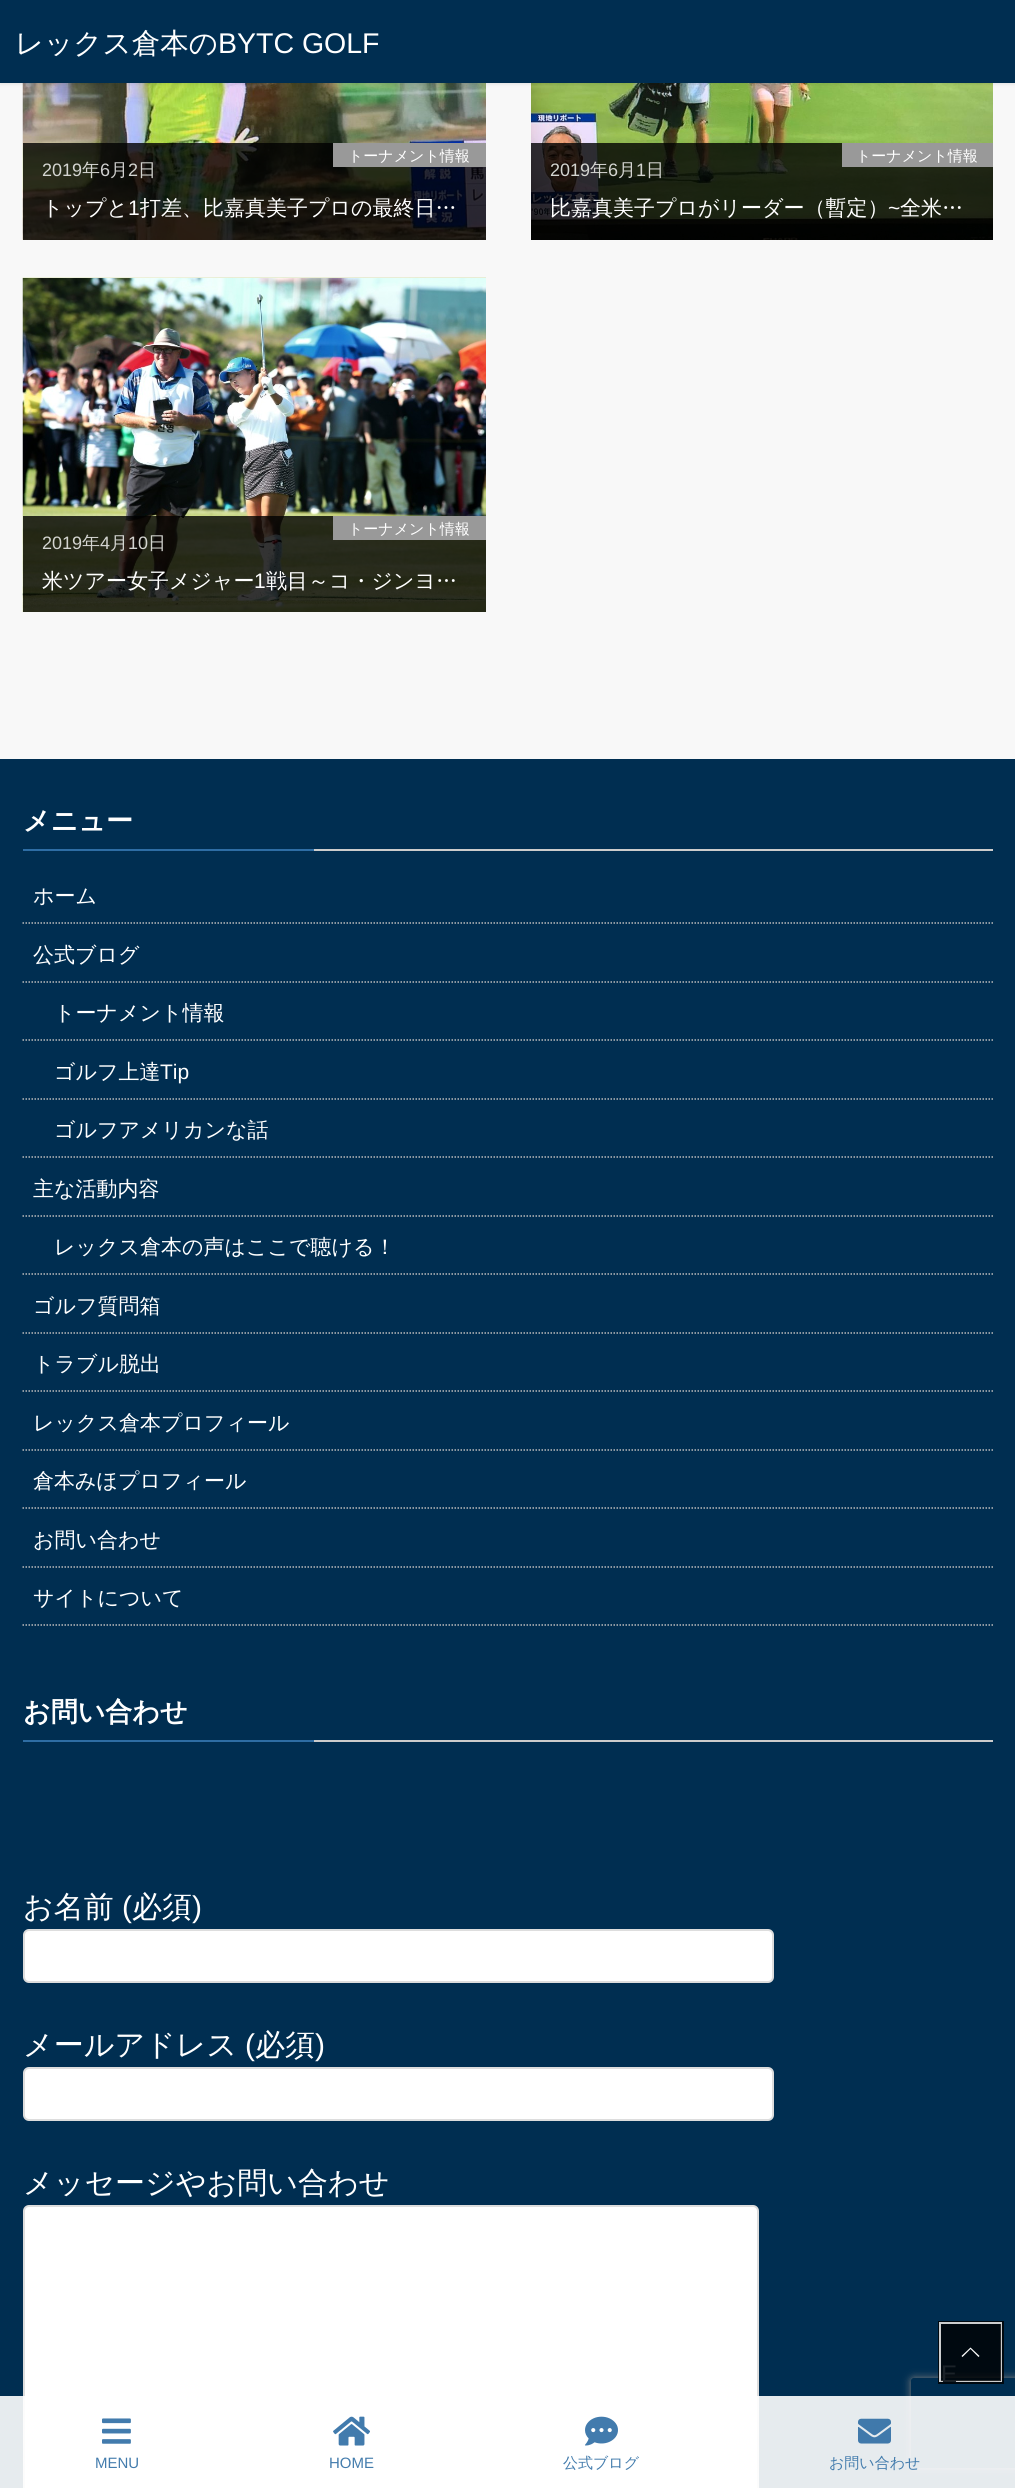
import math
import cairocffi as cairo

surface = cairo.ImageSurface(cairo.FORMAT_RGB24, 1015, 2488)
ctx = cairo.Context(surface)
options = cairo.FontOptions()
options.set_hint_metrics(cairo.HINT_METRICS_OFF)
options.set_hint_style(cairo.HINT_STYLE_NONE)
ctx.set_font_options(options)
ctx.set_miter_limit(4)


def rgb(r, g, b):
    ctx.set_source_rgb(r / 255, g / 255, b / 255)


def face(family, size, italic, bold):
    ctx.select_font_face(family, cairo.FONT_SLANT_ITALIC if italic else cairo.FONT_SLANT_NORMAL, cairo.FONT_WEIGHT_BOLD if bold else cairo.FONT_WEIGHT_NORMAL)
    ctx.set_font_size(size)


def label(x, y, s):
    ctx.move_to(x, y)
    ctx.show_text(s)


def rect(x, y, w, h):
    ctx.rectangle(x, y, w, h)
    ctx.fill()


def rrect(x, y, w, h, r):
    ctx.new_sub_path()
    for i, (u, v) in enumerate([(x + w - r, y + h - r), (x + r, y + h - r), (x + r, y + r), (x + w - r, y + r)]):
        ctx.arc(u, v, r, i * math.pi / 2, (i + 1) * math.pi / 2)
    ctx.close_path()


def soft_shadow(x, y, w, h, r, blur, alpha):
    ctx.push_group_with_content(cairo.CONTENT_ALPHA)
    ctx.set_operator(cairo.OPERATOR_SOURCE)
    for i in range(15, -16, -2):
        e = blur * i / 6
        if min(w, h) + 2 * e > 0:
            ctx.set_source_rgba(0, 0, 0, alpha * math.erfc((i - 1) / 8.5) / 2)
            rrect(x - e, y - e, w + 2 * e, h + 2 * e, max(0, min(r + e + blur * .6, min(w, h) / 2 + e)))
            ctx.fill()
    ctx.mask(ctx.pop_group())


def image(path, x, y, w, h):
    ctx.save()
    ctx.set_source_surface(cairo.ImageSurface.create_from_png(path), x, y)
    ctx.rectangle(x, y, w, h)
    ctx.fill()
    ctx.restore()


rgb(248, 248, 248)
ctx.paint()
image('image0.png', 22, 83, 464, 157)
image('image1.png', 531, 83, 462, 157)
rgb(0, 0, 0)
soft_shadow(0, 2, 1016, 82, 0, 2, 0.1)
rgb(0, 46, 81)
rect(0, 0, 1015, 83)
face('WenQuanYi Zen Hei Medium', 28.5, 0, 0)
rgb(255, 255, 255)
label(15, 53, 'レックス倉本の')
face('Liberation Sans', 28.5, 0, 0)
label(218, 53, 'BYTC GOLF')
ctx.set_source_rgba(0, 0, 0, 0.8)
rect(23, 143, 463, 97)
rgb(153, 153, 153)
rect(333, 143, 153, 24)
face('WenQuanYi Zen Hei Medium', 15, 0, 0)
rgb(255, 255, 255)
label(348, 161, 'トーナメント情報')
face('Liberation Sans', 18, 0, 0)
rgb(212, 213, 209)
label(42, 176, '2019')
face('WenQuanYi Zen Hei Medium', 18, 0, 0)
label(82, 176, '年')
face('Liberation Sans', 18, 0, 0)
rgb(207, 207, 206)
label(100, 176, '6')
face('WenQuanYi Zen Hei Medium', 18, 0, 0)
label(110, 176, '月')
face('Liberation Sans', 18, 0, 0)
rgb(212, 213, 209)
label(128, 176, '2')
face('WenQuanYi Zen Hei Medium', 18, 0, 0)
label(138, 176, '日')
face('WenQuanYi Zen Hei Medium', 21, 0, 0)
rgb(255, 255, 255)
label(42, 215, 'トップと')
face('Liberation Sans', 21, 0, 0)
label(128, 215, '1')
face('WenQuanYi Zen Hei Medium', 21, 0, 0)
label(140, 215, '打差、比嘉真美子プロの最終日…')
ctx.set_source_rgba(0, 0, 0, 0.8)
rect(531, 143, 462, 97)
rgb(153, 153, 153)
rect(842, 143, 151, 24)
face('WenQuanYi Zen Hei Medium', 15, 0, 0)
rgb(255, 255, 255)
label(856, 161, 'トーナメント情報')
face('Liberation Sans', 18, 0, 0)
rgb(212, 213, 209)
label(550, 176, '2019')
face('WenQuanYi Zen Hei Medium', 18, 0, 0)
label(590, 176, '年')
face('Liberation Sans', 18, 0, 0)
label(608, 176, '6')
face('WenQuanYi Zen Hei Medium', 18, 0, 0)
label(618, 176, '月')
face('Liberation Sans', 18, 0, 0)
label(636, 176, '1')
face('WenQuanYi Zen Hei Medium', 18, 0, 0)
label(646, 176, '日')
face('WenQuanYi Zen Hei Medium', 21, 0, 0)
rgb(255, 255, 255)
label(550, 215, '比嘉真美子プロがリーダー（暫定）')
face('Liberation Sans', 21, 0, 0)
label(888, 215, '~')
face('WenQuanYi Zen Hei Medium', 21, 0, 0)
label(900, 215, '全米…')
image('image2.png', 22, 277, 464, 335)
ctx.set_source_rgba(0, 0, 0, 0.8)
rect(23, 516, 463, 96)
rgb(153, 153, 153)
rect(333, 516, 153, 24)
face('WenQuanYi Zen Hei Medium', 15, 0, 0)
rgb(255, 255, 255)
label(348, 534, 'トーナメント情報')
face('Liberation Sans', 18, 0, 0)
rgb(212, 213, 209)
label(42, 549, '2019')
face('WenQuanYi Zen Hei Medium', 18, 0, 0)
label(82, 549, '年')
face('Liberation Sans', 18, 0, 0)
label(100, 549, '4')
face('WenQuanYi Zen Hei Medium', 18, 0, 0)
label(110, 549, '月')
face('Liberation Sans', 18, 0, 0)
label(128, 549, '10')
face('WenQuanYi Zen Hei Medium', 18, 0, 0)
label(148, 549, '日')
face('WenQuanYi Zen Hei Medium', 21, 0, 0)
rgb(255, 255, 255)
label(42, 588, '米ツアー女子メジャー')
face('Liberation Sans', 21, 0, 0)
label(254, 588, '1')
face('WenQuanYi Zen Hei Medium', 21, 0, 0)
label(266, 588, '戦目～コ・ジンヨ…')
rgb(0, 46, 81)
rect(0, 759, 1015, 1729)
rgb(204, 204, 204)
rect(314, 849, 679, 2)
face('WenQuanYi Zen Hei', 27, 0, 1)
rgb(255, 255, 255)
label(23, 830, 'メニュー')
rgb(46, 109, 164)
rect(23, 849, 291, 2)
ctx.new_path()
ctx.move_to(22.5, 923)
ctx.line_to(993, 923)
rgb(187, 187, 187)
ctx.set_line_width(1.5)
ctx.set_dash([1.5, 1.5])
ctx.stroke()
face('WenQuanYi Zen Hei Medium', 21, 0, 0)
rgb(255, 255, 255)
label(33, 903, 'ホーム')
ctx.new_path()
ctx.move_to(22.5, 982)
ctx.line_to(993, 982)
rgb(187, 187, 187)
ctx.stroke()
rgb(255, 255, 255)
label(33, 962, '公式ブログ')
ctx.new_path()
ctx.move_to(22.5, 1040)
ctx.line_to(993, 1040)
rgb(187, 187, 187)
ctx.stroke()
rgb(255, 255, 255)
label(54, 1020, 'トーナメント情報')
ctx.new_path()
ctx.move_to(22.5, 1099)
ctx.line_to(993, 1099)
rgb(187, 187, 187)
ctx.stroke()
rgb(255, 255, 255)
label(54, 1079, 'ゴルフ上達')
face('Liberation Sans', 21, 0, 0)
label(160, 1079, 'Tip')
ctx.new_path()
ctx.move_to(22.5, 1157)
ctx.line_to(993, 1157)
rgb(187, 187, 187)
ctx.stroke()
face('WenQuanYi Zen Hei Medium', 21, 0, 0)
rgb(255, 255, 255)
label(54, 1137, 'ゴルフアメリカンな話')
ctx.new_path()
ctx.move_to(22.5, 1216)
ctx.line_to(993, 1216)
rgb(187, 187, 187)
ctx.stroke()
rgb(255, 255, 255)
label(33, 1196, '主な活動内容')
ctx.new_path()
ctx.move_to(22.5, 1274)
ctx.line_to(993, 1274)
rgb(187, 187, 187)
ctx.stroke()
rgb(255, 255, 255)
label(54, 1254, 'レックス倉本の声はここで聴ける！')
ctx.new_path()
ctx.move_to(22.5, 1333)
ctx.line_to(993, 1333)
rgb(187, 187, 187)
ctx.stroke()
rgb(255, 255, 255)
label(33, 1313, 'ゴルフ質問箱')
ctx.new_path()
ctx.move_to(22.5, 1391)
ctx.line_to(993, 1391)
rgb(187, 187, 187)
ctx.stroke()
rgb(255, 255, 255)
label(33, 1371, 'トラブル脱出')
ctx.new_path()
ctx.move_to(22.5, 1450)
ctx.line_to(993, 1450)
rgb(187, 187, 187)
ctx.stroke()
rgb(255, 255, 255)
label(33, 1430, 'レックス倉本プロフィール')
ctx.new_path()
ctx.move_to(22.5, 1508)
ctx.line_to(993, 1508)
rgb(187, 187, 187)
ctx.stroke()
rgb(255, 255, 255)
label(33, 1488, '倉本みほプロフィール')
ctx.new_path()
ctx.move_to(22.5, 1567)
ctx.line_to(993, 1567)
rgb(187, 187, 187)
ctx.stroke()
rgb(255, 255, 255)
label(33, 1547, 'お問い合わせ')
ctx.new_path()
ctx.move_to(22.5, 1625)
ctx.line_to(993, 1625)
rgb(187, 187, 187)
ctx.stroke()
rgb(255, 255, 255)
label(33, 1605, 'サイトについて')
rgb(204, 204, 204)
rect(314, 1740, 679, 2)
face('WenQuanYi Zen Hei', 27, 0, 1)
rgb(255, 255, 255)
label(23, 1721, 'お問い合わせ')
rgb(46, 109, 164)
rect(23, 1740, 291, 2)
face('WenQuanYi Zen Hei Medium', 30, 0, 0)
rgb(255, 255, 255)
label(23, 1917, 'お名前')
face('Liberation Sans', 30, 0, 0)
label(122, 1917, '(')
face('WenQuanYi Zen Hei Medium', 30, 0, 0)
label(132, 1917, '必須')
face('Liberation Sans', 30, 0, 0)
label(192, 1917, ')')
rrect(24, 1930, 749, 52, 5)
ctx.fill_preserve()
rgb(221, 221, 221)
ctx.set_line_width(2)
ctx.set_dash([])
ctx.stroke()
face('WenQuanYi Zen Hei Medium', 30, 0, 0)
rgb(255, 255, 255)
label(23, 2055, 'メールアドレス')
face('Liberation Sans', 30, 0, 0)
label(245, 2055, '(')
face('WenQuanYi Zen Hei Medium', 30, 0, 0)
label(255, 2055, '必須')
face('Liberation Sans', 30, 0, 0)
label(315, 2055, ')')
rrect(24, 2068, 749, 52, 5)
ctx.fill_preserve()
rgb(221, 221, 221)
ctx.stroke()
face('WenQuanYi Zen Hei Medium', 30, 0, 0)
rgb(255, 255, 255)
label(23, 2193, 'メッセージやお問い合わせ')
rrect(24, 2206, 734, 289, 5)
ctx.fill_preserve()
rgb(221, 221, 221)
ctx.stroke()
ctx.save()
ctx.set_fill_rule(cairo.FILL_RULE_EVEN_ODD)
ctx.new_path()
ctx.move_to(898, 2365)
ctx.line_to(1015, 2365)
ctx.line_to(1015, 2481)
ctx.line_to(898, 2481)
ctx.close_path()
ctx.move_to(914, 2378)
ctx.line_to(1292, 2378)
ctx.curve_to(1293.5, 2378, 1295, 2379.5, 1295, 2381)
ctx.line_to(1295, 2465)
ctx.curve_to(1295, 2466.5, 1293.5, 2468, 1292, 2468)
ctx.line_to(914, 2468)
ctx.curve_to(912.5, 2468, 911, 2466.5, 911, 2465)
ctx.line_to(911, 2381)
ctx.curve_to(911, 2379.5, 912.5, 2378, 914, 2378)
ctx.close_path()
ctx.clip()
rgb(128, 128, 128)
soft_shadow(911, 2378, 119, 90, 3, 4, 1)
ctx.restore()
ctx.rectangle(939.5, 2322.5, 63, 60)
ctx.set_source_rgba(0, 0, 0, 0.8)
ctx.set_line_width(3)
ctx.stroke()
ctx.rectangle(940, 2323, 61, 58)
ctx.set_source_rgba(1, 1, 1, 0.8)
ctx.set_line_width(2)
ctx.stroke()
ctx.set_source_rgba(0, 0, 0, 0.8)
rect(941, 2324, 60, 57)
rgb(255, 255, 255)
ctx.new_path()
ctx.move_to(979.5, 2356)
ctx.line_to(978.5, 2357)
ctx.line_to(970.5, 2349)
ctx.line_to(962.5, 2357)
ctx.line_to(961.5, 2356)
ctx.line_to(970.5, 2347.5)
ctx.close_path()
ctx.fill()
face('Liberation Sans', 24, 0, 0)
rgb(27, 34, 40)
label(941, 2382, 'E')
ctx.set_source_rgba(1, 1, 1, 0.9)
rect(0, 2396, 1015, 92)
image('image3.png', 102, 2418, 29, 26)
face('Liberation Sans', 15, 0, 0)
rgb(67, 124, 173)
label(95, 2468, 'MENU')
image('image4.png', 333, 2416, 37, 30)
label(329, 2468, 'HOME')
image('image5.png', 585, 2416, 33, 30)
face('WenQuanYi Zen Hei Medium', 15, 0, 0)
label(563, 2468, '公式ブログ')
image('image6.png', 858, 2418, 33, 26)
label(829, 2468, 'お問い合わせ')
surface.write_to_png('render.png')
